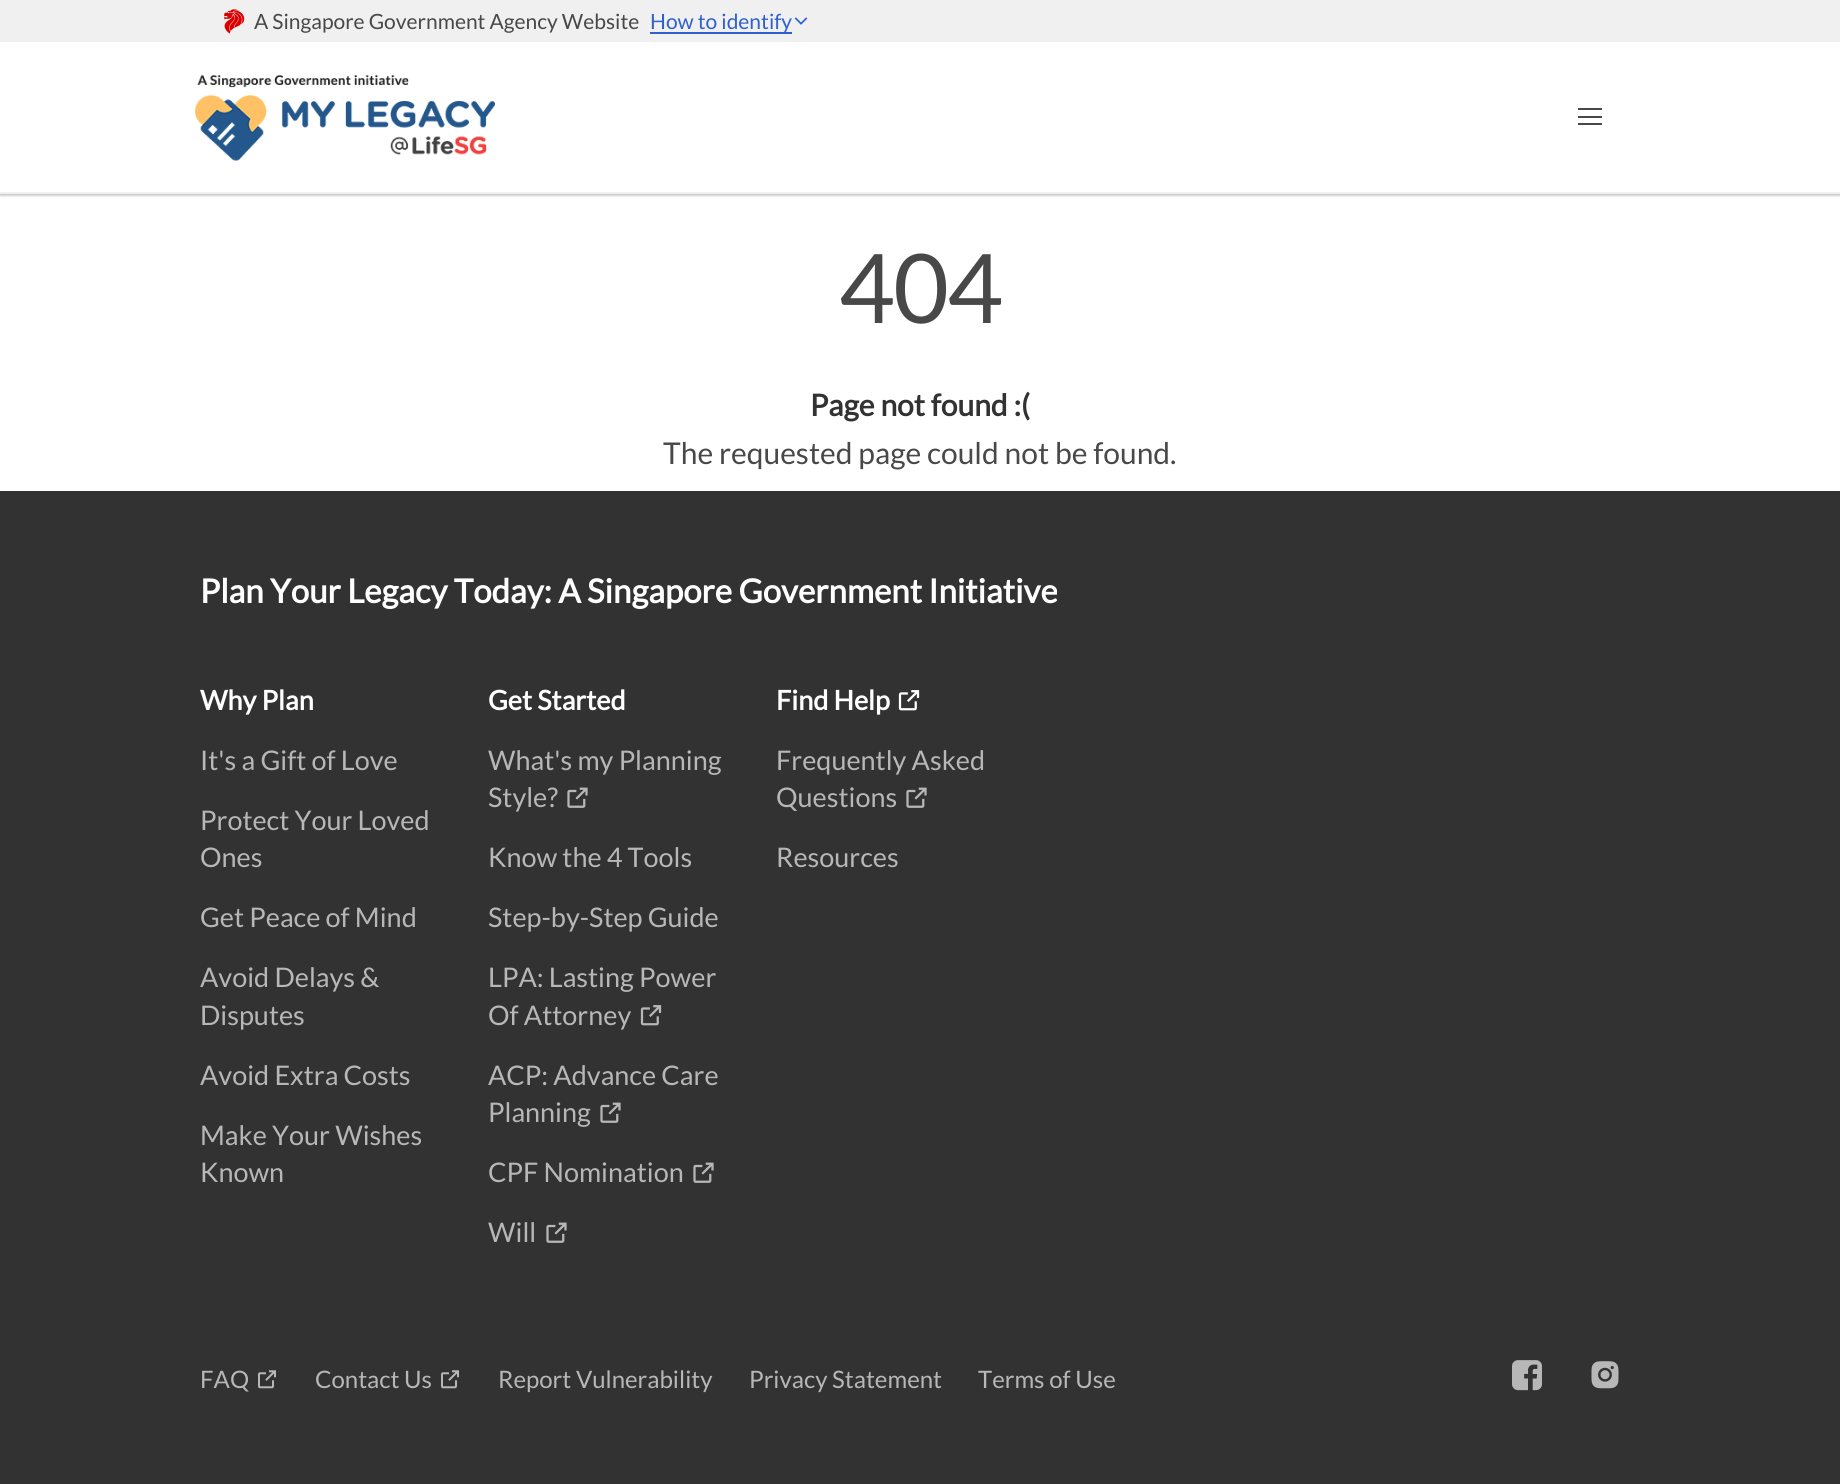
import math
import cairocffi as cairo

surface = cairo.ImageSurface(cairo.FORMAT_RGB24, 1840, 1484)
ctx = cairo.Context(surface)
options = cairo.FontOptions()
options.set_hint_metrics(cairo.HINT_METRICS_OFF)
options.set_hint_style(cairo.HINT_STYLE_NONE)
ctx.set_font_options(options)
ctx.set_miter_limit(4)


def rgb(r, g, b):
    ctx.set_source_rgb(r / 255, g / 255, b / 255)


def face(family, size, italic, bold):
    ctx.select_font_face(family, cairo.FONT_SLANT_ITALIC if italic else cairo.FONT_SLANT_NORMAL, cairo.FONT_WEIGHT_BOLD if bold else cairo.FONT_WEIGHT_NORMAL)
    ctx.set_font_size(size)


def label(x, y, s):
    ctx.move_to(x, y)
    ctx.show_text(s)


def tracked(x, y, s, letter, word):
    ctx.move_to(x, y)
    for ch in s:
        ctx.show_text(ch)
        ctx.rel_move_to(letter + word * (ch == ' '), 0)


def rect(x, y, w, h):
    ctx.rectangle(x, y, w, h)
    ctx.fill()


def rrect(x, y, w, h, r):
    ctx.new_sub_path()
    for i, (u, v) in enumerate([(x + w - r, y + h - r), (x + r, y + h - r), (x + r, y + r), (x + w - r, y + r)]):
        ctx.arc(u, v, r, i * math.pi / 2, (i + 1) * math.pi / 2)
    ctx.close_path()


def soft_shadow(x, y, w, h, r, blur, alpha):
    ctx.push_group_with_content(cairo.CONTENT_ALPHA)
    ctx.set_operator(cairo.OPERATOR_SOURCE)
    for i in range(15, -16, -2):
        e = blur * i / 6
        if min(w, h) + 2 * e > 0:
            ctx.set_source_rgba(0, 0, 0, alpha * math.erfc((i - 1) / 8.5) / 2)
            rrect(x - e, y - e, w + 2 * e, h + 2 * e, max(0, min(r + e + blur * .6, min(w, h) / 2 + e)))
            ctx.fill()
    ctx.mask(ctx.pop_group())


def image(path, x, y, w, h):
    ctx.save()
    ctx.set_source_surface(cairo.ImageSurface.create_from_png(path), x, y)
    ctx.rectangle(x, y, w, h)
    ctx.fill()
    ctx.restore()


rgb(255, 255, 255)
ctx.paint()
rgb(0, 0, 0)
soft_shadow(0, -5, 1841, 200, 0, 1.5, 0.24)
soft_shadow(0, -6, 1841, 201, 0, 2, 0.12)
rgb(240, 240, 240)
rect(0, 0, 1840, 42)
image('image0.png', 224, 9, 21, 25)
face('Lato', 21, 0, 0)
rgb(72, 72, 72)
label(254, 29, 'A Singapore Government Agency Website')
rgb(47, 96, 206)
rect(650, 32, 142, 2)
label(650, 29, 'How to identify')
image('image1.png', 794, 17, 14, 8)
rgb(255, 255, 255)
rect(0, 42, 1840, 150)
rgb(240, 240, 240)
rect(0, 192, 1840, 2)
image('image2.png', 195, 75, 300, 86)
rgb(72, 72, 72)
rect(1578, 108, 24, 2)
rect(1578, 116, 24, 2)
rect(1578, 123, 24, 2)
face('Lato', 96, 0, 0)
tracked(839, 323, '404', -1.5, 0)
face('Lato', 30, 0, 1)
rgb(50, 50, 50)
label(810, 416, 'Page not found :(')
face('Lato', 30, 0, 0)
rgb(72, 72, 72)
label(663, 464, 'The requested page could not be found.')
rgb(50, 50, 50)
rect(0, 491, 1840, 993)
face('Lato', 33, 0, 1)
rgb(255, 255, 255)
label(200, 603, 'Plan Your Legacy Today: A Singapore Government Initiative')
face('Lato', 27, 0, 1)
label(200, 710, 'Why Plan')
face('Lato', 27, 0, 0)
rgb(183, 183, 183)
label(200, 770, 'It\'s a Gift of Love')
label(200, 830, 'Protect Your Loved')
label(200, 867, 'Ones')
label(200, 927, 'Get Peace of Mind')
label(200, 987, 'Avoid Delays &')
label(200, 1025, 'Disputes')
label(200, 1085, 'Avoid Extra Costs')
label(200, 1145, 'Make Your Wishes')
label(200, 1182, 'Known')
face('Lato', 27, 0, 1)
rgb(255, 255, 255)
label(488, 710, 'Get Started')
face('Lato', 27, 0, 0)
rgb(183, 183, 183)
label(488, 770, 'What\'s my Planning')
label(488, 807, 'Style?')
image('image3.png', 567, 787, 21, 21)
label(488, 867, 'Know the 4 Tools')
label(488, 927, 'Step-by-Step Guide')
label(488, 987, 'LPA: Lasting Power')
label(488, 1025, 'Of Attorney')
image('image4.png', 640, 1005, 22, 21)
label(488, 1085, 'ACP: Advance Care')
label(488, 1122, 'Planning')
image('image3.png', 600, 1102, 21, 21)
label(488, 1182, 'CPF Nomination')
image('image3.png', 693, 1162, 21, 21)
label(488, 1242, 'Will')
image('image3.png', 546, 1222, 21, 21)
face('Lato', 27, 0, 1)
rgb(255, 255, 255)
label(776, 710, 'Find Help')
image('image5.png', 898, 690, 22, 21)
face('Lato', 27, 0, 0)
rgb(183, 183, 183)
label(776, 770, 'Frequently Asked')
label(776, 807, 'Questions')
image('image3.png', 906, 787, 21, 21)
label(776, 867, 'Resources')
face('Lato', 24, 0, 0)
label(200, 1388, 'FAQ')
image('image6.png', 258, 1370, 18, 19)
label(315, 1388, 'Contact Us')
image('image6.png', 441, 1370, 18, 19)
label(498, 1388, 'Report Vulnerability')
label(749, 1388, 'Privacy Statement')
label(978, 1388, 'Terms of Use')
image('image7.png', 1512, 1360, 30, 31)
image('image8.png', 1591, 1361, 28, 28)
surface.write_to_png('render.png')
